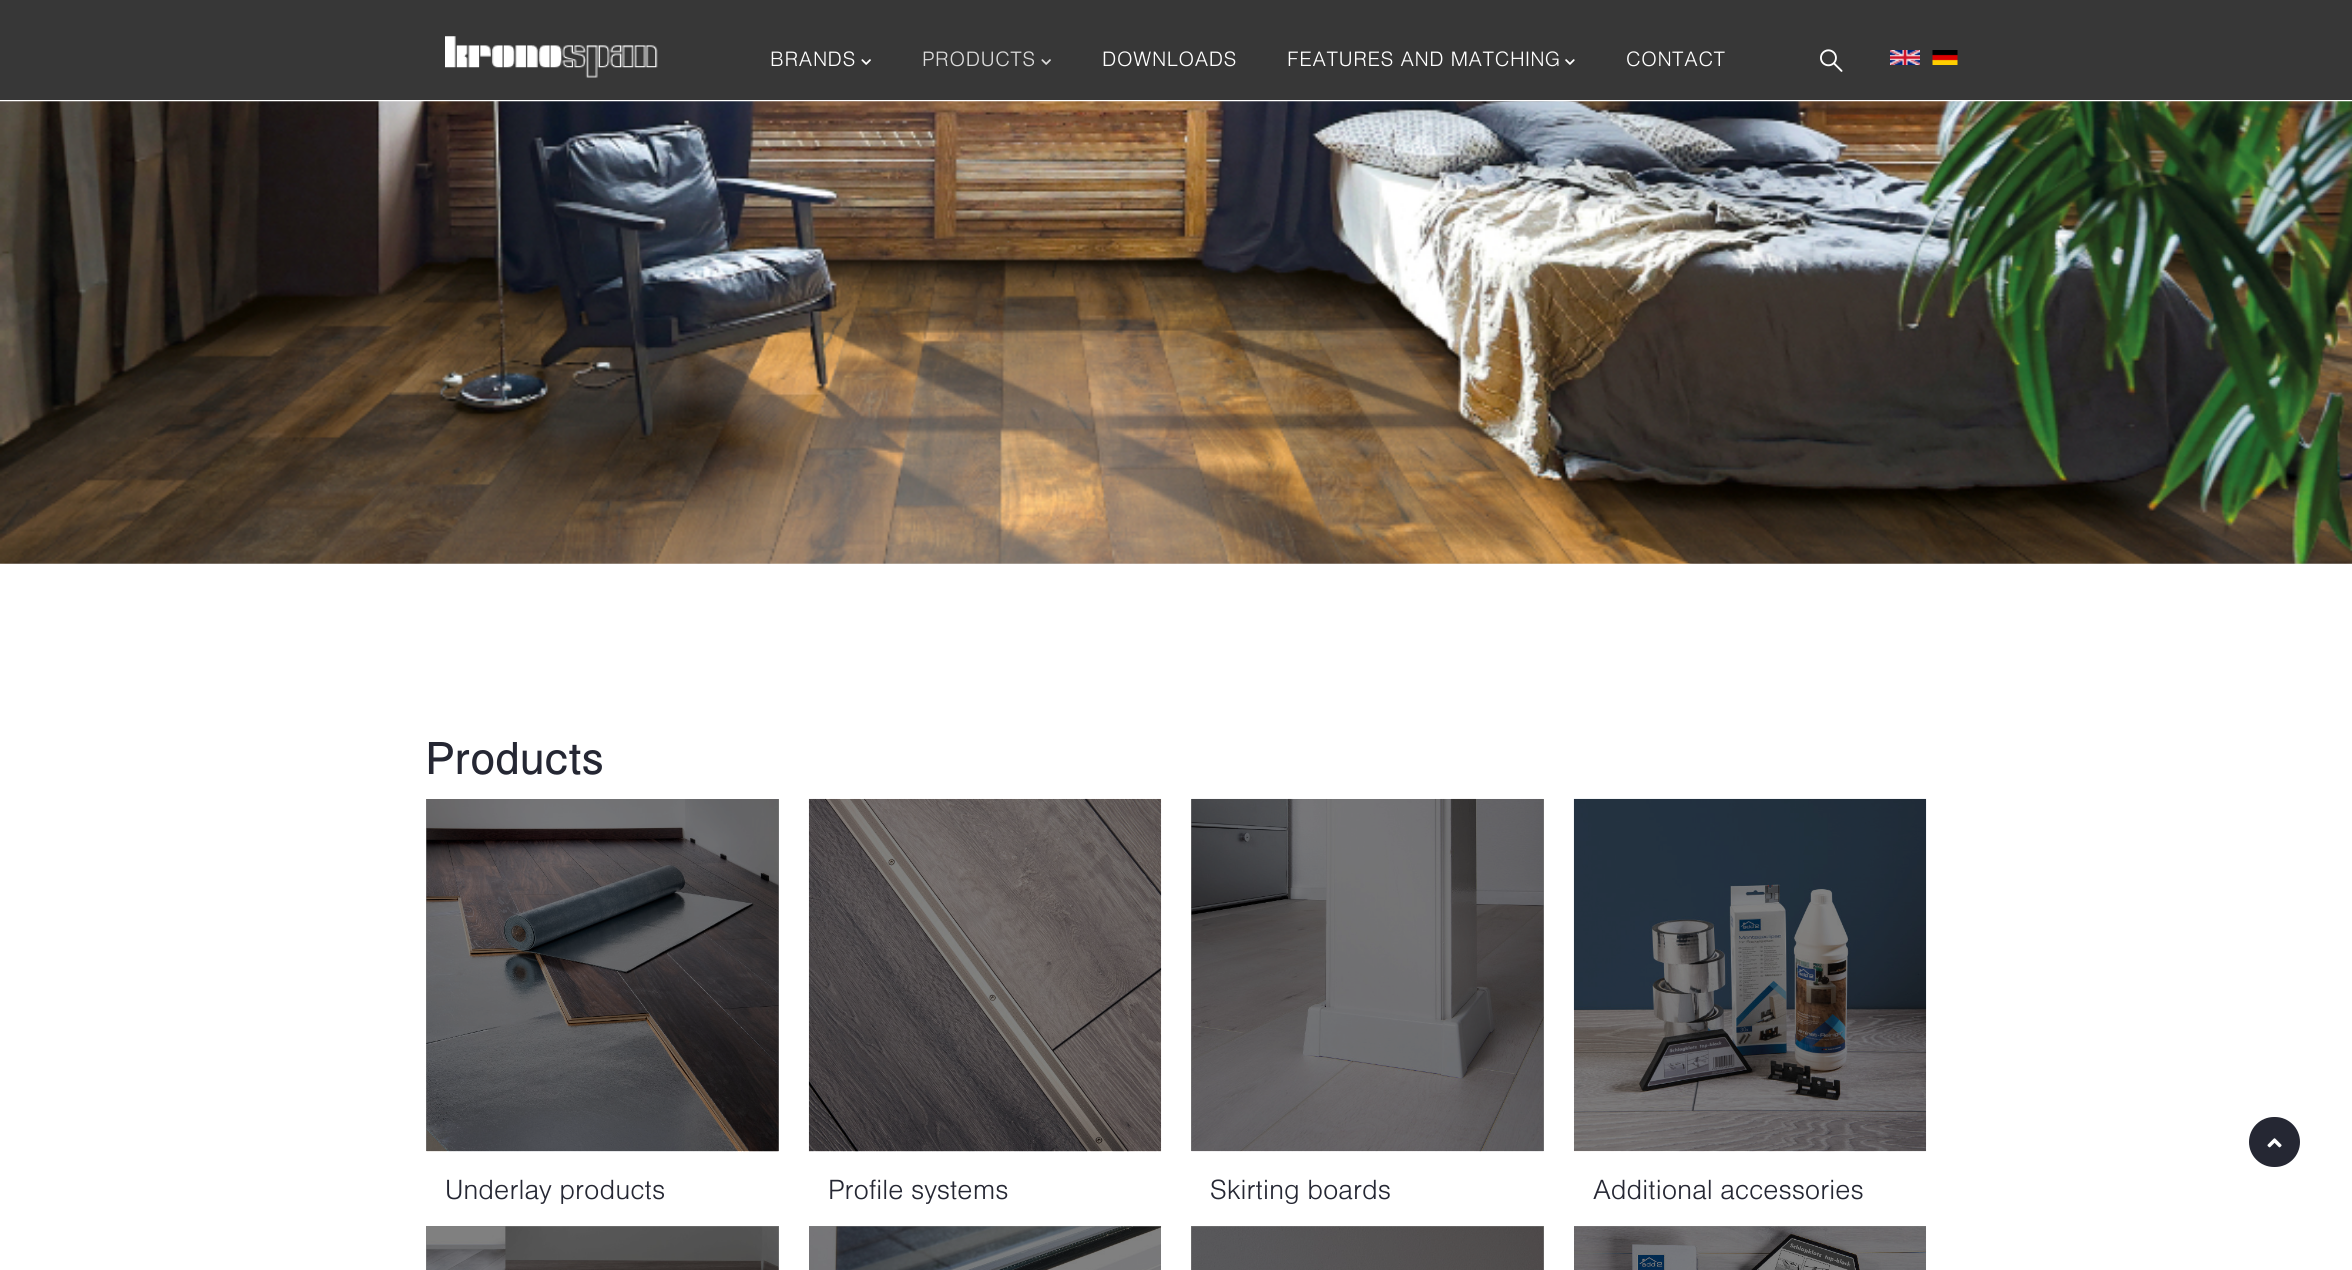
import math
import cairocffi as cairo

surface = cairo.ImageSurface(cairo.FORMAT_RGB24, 2352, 1270)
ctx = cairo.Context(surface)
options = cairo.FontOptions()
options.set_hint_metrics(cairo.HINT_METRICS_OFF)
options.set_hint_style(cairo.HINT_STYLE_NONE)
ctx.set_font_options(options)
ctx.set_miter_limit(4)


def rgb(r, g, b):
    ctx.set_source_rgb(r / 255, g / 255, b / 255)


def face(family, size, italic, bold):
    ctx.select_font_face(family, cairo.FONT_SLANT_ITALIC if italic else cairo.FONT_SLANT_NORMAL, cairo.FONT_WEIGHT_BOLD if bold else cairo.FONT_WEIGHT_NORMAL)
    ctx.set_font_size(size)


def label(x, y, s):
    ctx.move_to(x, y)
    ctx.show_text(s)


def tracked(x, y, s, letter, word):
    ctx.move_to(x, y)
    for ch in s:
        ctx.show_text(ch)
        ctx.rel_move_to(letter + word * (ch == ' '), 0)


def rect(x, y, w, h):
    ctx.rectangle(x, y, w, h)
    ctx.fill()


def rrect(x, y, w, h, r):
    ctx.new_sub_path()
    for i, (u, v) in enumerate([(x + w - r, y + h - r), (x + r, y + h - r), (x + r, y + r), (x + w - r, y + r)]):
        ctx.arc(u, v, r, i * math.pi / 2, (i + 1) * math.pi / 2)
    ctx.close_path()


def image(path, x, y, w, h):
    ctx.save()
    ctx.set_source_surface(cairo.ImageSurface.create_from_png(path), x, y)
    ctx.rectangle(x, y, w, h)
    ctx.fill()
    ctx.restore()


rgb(255, 255, 255)
ctx.paint()
rgb(128, 128, 128)
rect(1574, 1226, 352, 1)
rect(1191, 1226, 353, 44)
rect(809, 1226, 352, 1)
rect(426, 1226, 353, 44)
rect(1191, 799, 353, 352)
rect(426, 799, 353, 352)
rgb(55, 55, 55)
rect(0, 0, 2352, 100)
image('image0.png', 445, 36, 213, 42)
face('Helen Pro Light', 22.5, 0, 0)
rgb(255, 255, 255)
tracked(770, 66, 'BRANDS', 0.75, 0)
image('image1.png', 861, 59, 10, 6)
rgb(219, 219, 219)
tracked(922, 66, 'PRODUCTS', 0.75, 0)
image('image2.png', 1041, 59, 10, 6)
rgb(255, 255, 255)
tracked(1102, 66, 'DOWNLOADS', 0.75, 0)
tracked(1287, 66, 'FEATURES AND MATCHING', 0.75, 0)
image('image3.png', 1565, 59, 10, 6)
tracked(1626, 66, 'CONTACT', 0.75, 0)
image('image4.png', 1890, 50, 30, 15)
image('image5.png', 1932, 50, 26, 15)
image('image6.png', 1820, 49, 23, 23)
image('image7.png', 0, 101, 2352, 463)
face('Helen Pro', 50, 0, 0)
rgb(37, 39, 51)
label(426, 774, 'Products')
image('image8.png', 426, 799, 353, 353)
face('Helen Pro Light', 30, 0, 0)
label(445, 1199, 'Underlay products')
image('image9.png', 808, 798, 354, 354)
label(828, 1199, 'Profile systems')
image('image10.png', 1191, 798, 353, 354)
label(1210, 1199, 'Skirting boards')
image('image11.png', 1573, 798, 354, 354)
label(1593, 1199, 'Additional accessories')
image('image12.png', 426, 1226, 353, 44)
image('image13.png', 809, 1226, 353, 44)
image('image14.png', 1191, 1226, 353, 44)
image('image15.png', 1574, 1226, 353, 44)
rrect(2247.5, 1115.5, 54, 53, 26.5)
ctx.fill_preserve()
rgb(255, 255, 255)
ctx.set_line_width(3)
ctx.stroke()
image('image16.png', 2267, 1138, 15, 10)
surface.write_to_png('render.png')
